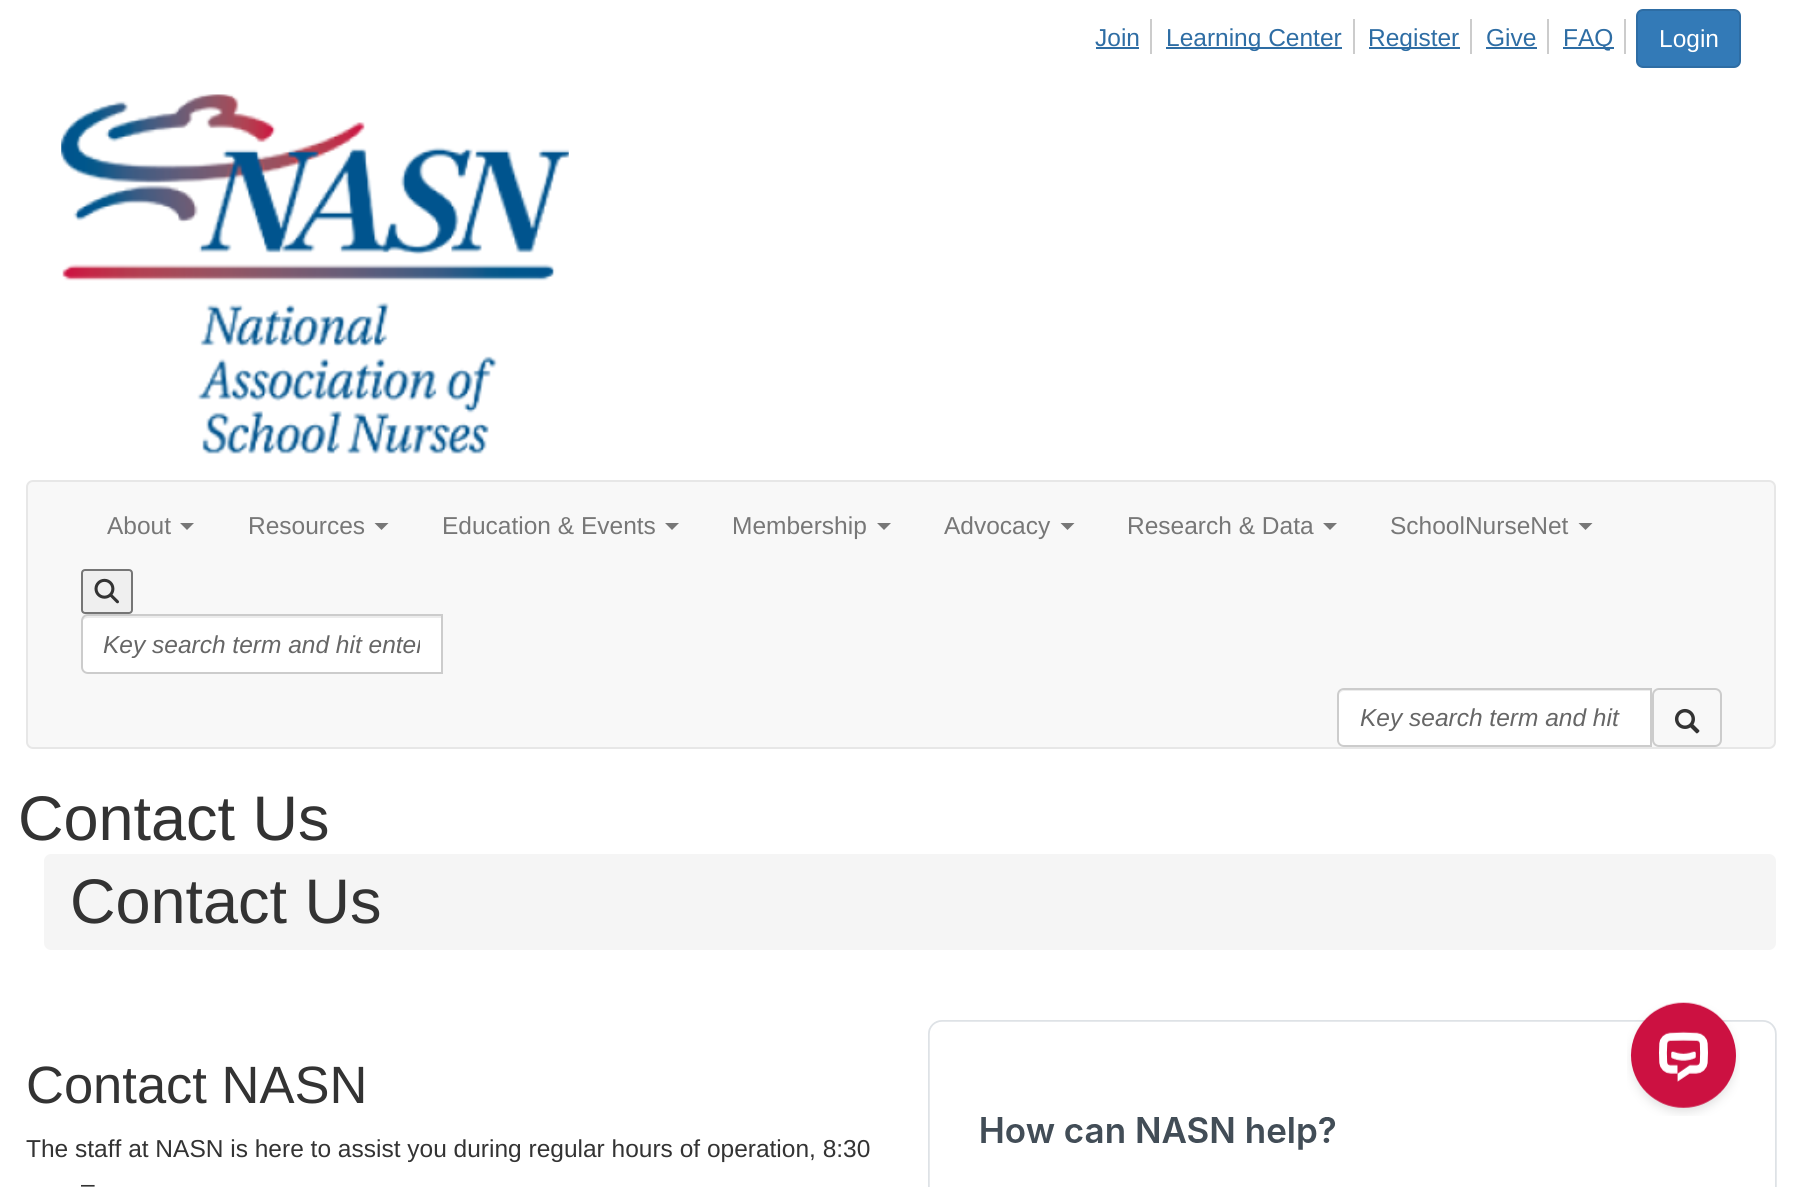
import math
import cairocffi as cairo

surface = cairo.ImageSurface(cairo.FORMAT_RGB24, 1802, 1187)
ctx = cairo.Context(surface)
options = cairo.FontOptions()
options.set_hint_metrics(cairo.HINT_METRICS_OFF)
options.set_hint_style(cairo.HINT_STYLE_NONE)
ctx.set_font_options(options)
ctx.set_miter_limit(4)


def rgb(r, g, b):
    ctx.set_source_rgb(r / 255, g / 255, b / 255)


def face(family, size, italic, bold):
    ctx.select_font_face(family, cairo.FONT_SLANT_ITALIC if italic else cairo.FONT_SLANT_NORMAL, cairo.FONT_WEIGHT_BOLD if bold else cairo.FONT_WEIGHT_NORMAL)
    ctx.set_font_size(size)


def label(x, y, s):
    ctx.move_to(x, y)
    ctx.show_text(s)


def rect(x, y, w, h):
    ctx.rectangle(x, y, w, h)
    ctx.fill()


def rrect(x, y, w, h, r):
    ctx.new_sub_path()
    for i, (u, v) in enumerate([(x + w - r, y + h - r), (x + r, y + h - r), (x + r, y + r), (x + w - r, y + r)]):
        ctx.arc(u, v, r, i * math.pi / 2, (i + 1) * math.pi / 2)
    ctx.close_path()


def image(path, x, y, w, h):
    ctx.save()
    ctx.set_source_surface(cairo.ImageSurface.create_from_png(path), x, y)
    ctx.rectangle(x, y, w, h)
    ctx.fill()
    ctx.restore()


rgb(255, 255, 255)
ctx.paint()
rgb(204, 204, 204)
rect(1150, 19, 2, 35)
face('Liberation Sans', 24.5, 0, 0)
rgb(46, 109, 164)
label(1095, 46, 'Join')
rect(1096, 47, 43, 2)
rgb(204, 204, 204)
rect(1353, 19, 2, 35)
rgb(46, 109, 164)
rect(1166, 47, 176, 2)
label(1166, 46, 'Learning Center')
rgb(204, 204, 204)
rect(1470, 19, 2, 35)
rgb(46, 109, 164)
rect(1369, 47, 91, 2)
label(1368, 46, 'Register')
rgb(204, 204, 204)
rect(1547, 19, 2, 35)
rgb(46, 109, 164)
label(1486, 46, 'Give')
rect(1486, 47, 51, 2)
rgb(204, 204, 204)
rect(1624, 19, 2, 35)
rgb(46, 109, 164)
rect(1563, 47, 51, 2)
label(1563, 46, 'FAQ')
rgb(51, 122, 183)
rrect(1637, 10, 103, 57, 6)
ctx.fill_preserve()
rgb(46, 109, 164)
ctx.stroke()
rgb(255, 255, 255)
label(1659, 47, 'Login')
image('image0.png', 61, 94, 508, 360)
rgb(248, 248, 248)
rrect(27, 481, 1748, 267, 6)
ctx.fill_preserve()
rgb(231, 231, 231)
ctx.stroke()
rgb(119, 119, 119)
label(107, 534, 'About')
ctx.new_path()
ctx.move_to(180, 523)
ctx.line_to(194, 523)
ctx.line_to(187, 530)
ctx.close_path()
ctx.fill()
label(248, 534, 'Resources')
ctx.new_path()
ctx.move_to(374.5, 523)
ctx.line_to(388.5, 523)
ctx.line_to(381.5, 530)
ctx.close_path()
ctx.fill()
label(442, 534, 'Education & Events')
ctx.new_path()
ctx.move_to(665, 523)
ctx.line_to(679, 523)
ctx.line_to(672, 530)
ctx.close_path()
ctx.fill()
label(732, 534, 'Membership')
ctx.new_path()
ctx.move_to(877, 523)
ctx.line_to(891, 523)
ctx.line_to(884, 530)
ctx.close_path()
ctx.fill()
label(944, 534, 'Advocacy')
ctx.new_path()
ctx.move_to(1060.5, 523)
ctx.line_to(1074.5, 523)
ctx.line_to(1067.5, 530)
ctx.close_path()
ctx.fill()
label(1127, 534, 'Research & Data')
ctx.new_path()
ctx.move_to(1323, 523)
ctx.line_to(1337, 523)
ctx.line_to(1330, 530)
ctx.close_path()
ctx.fill()
label(1390, 534, 'SchoolNurseNet')
ctx.new_path()
ctx.move_to(1578.5, 523)
ctx.line_to(1592.5, 523)
ctx.line_to(1585.5, 530)
ctx.close_path()
ctx.fill()
rgb(239, 239, 239)
rrect(82, 570, 50, 43, 3)
ctx.fill_preserve()
rgb(118, 118, 118)
ctx.stroke()
image('image1.png', 94, 578, 25, 26)
rgb(255, 255, 255)
ctx.new_path()
ctx.move_to(88, 614)
ctx.line_to(443, 614)
ctx.line_to(443, 674)
ctx.line_to(88, 674)
ctx.curve_to(84, 674, 81, 671, 81, 667)
ctx.line_to(81, 621)
ctx.curve_to(81, 617, 84, 614, 88, 614)
ctx.close_path()
ctx.fill()
rgb(236, 236, 236)
ctx.new_path()
ctx.move_to(88, 618)
ctx.line_to(441, 618)
ctx.line_to(441, 616)
ctx.line_to(87, 616)
ctx.curve_to(83, 616, 82, 620, 82, 623)
ctx.curve_to(82, 620, 85, 618, 88, 618)
ctx.close_path()
ctx.fill()
ctx.new_path()
ctx.move_to(88, 615)
ctx.line_to(442, 615)
ctx.line_to(442, 673)
ctx.line_to(88, 673)
ctx.curve_to(84.5, 673, 82, 670.5, 82, 667)
ctx.line_to(82, 621)
ctx.curve_to(82, 617.5, 84.5, 615, 88, 615)
ctx.close_path()
rgb(204, 204, 204)
ctx.stroke()
ctx.save()
ctx.rectangle(103, 630, 317, 28)
ctx.clip()
face('Liberation Sans', 24.5, 1, 0)
rgb(102, 102, 102)
label(103, 653, 'Key search term and hit enter')
ctx.restore()
rgb(255, 255, 255)
ctx.new_path()
ctx.move_to(1344, 688)
ctx.line_to(1652, 688)
ctx.line_to(1652, 747)
ctx.line_to(1344, 747)
ctx.curve_to(1340, 747, 1337, 744, 1337, 740)
ctx.line_to(1337, 695)
ctx.curve_to(1337, 691, 1340, 688, 1344, 688)
ctx.close_path()
ctx.fill()
rgb(236, 236, 236)
ctx.new_path()
ctx.move_to(1344, 691)
ctx.line_to(1650, 691)
ctx.line_to(1650, 690)
ctx.line_to(1344, 690)
ctx.curve_to(1341, 690, 1339, 693, 1339, 696)
ctx.curve_to(1339, 694, 1341, 691, 1344, 691)
ctx.close_path()
ctx.fill()
ctx.new_path()
ctx.move_to(1344, 689)
ctx.line_to(1651, 689)
ctx.line_to(1651, 746)
ctx.line_to(1344, 746)
ctx.curve_to(1340.5, 746, 1338, 743.5, 1338, 740)
ctx.line_to(1338, 695)
ctx.curve_to(1338, 691.5, 1340.5, 689, 1344, 689)
ctx.close_path()
rgb(204, 204, 204)
ctx.stroke()
face('Liberation Sans', 24.5, 1, 0)
rgb(102, 102, 102)
label(1360, 726, 'Key search term and hit')
rrect(1653, 689, 68, 57, 6)
rgb(204, 204, 204)
ctx.stroke()
image('image2.png', 1674, 708, 26, 26)
face('Liberation Sans', 63, 0, 0)
rgb(51, 51, 51)
label(18, 840, 'Contact Us')
rgb(245, 245, 245)
rrect(44, 854, 1732, 96, 7)
ctx.fill()
rgb(51, 51, 51)
label(70, 923, 'Contact Us')
face('Liberation Sans', 52.5, 0, 0)
label(26, 1103, 'Contact NASN')
face('Liberation Sans', 24.5, 0, 0)
label(26, 1157, 'The staff at NASN is here to assist you during regular hours of operation, 8:30')
label(81, 1192, '–')
image('image3.png', 928, 1020, 849, 167)
image('image4.png', 1627, 1002, 113, 114)
surface.write_to_png('render.png')
